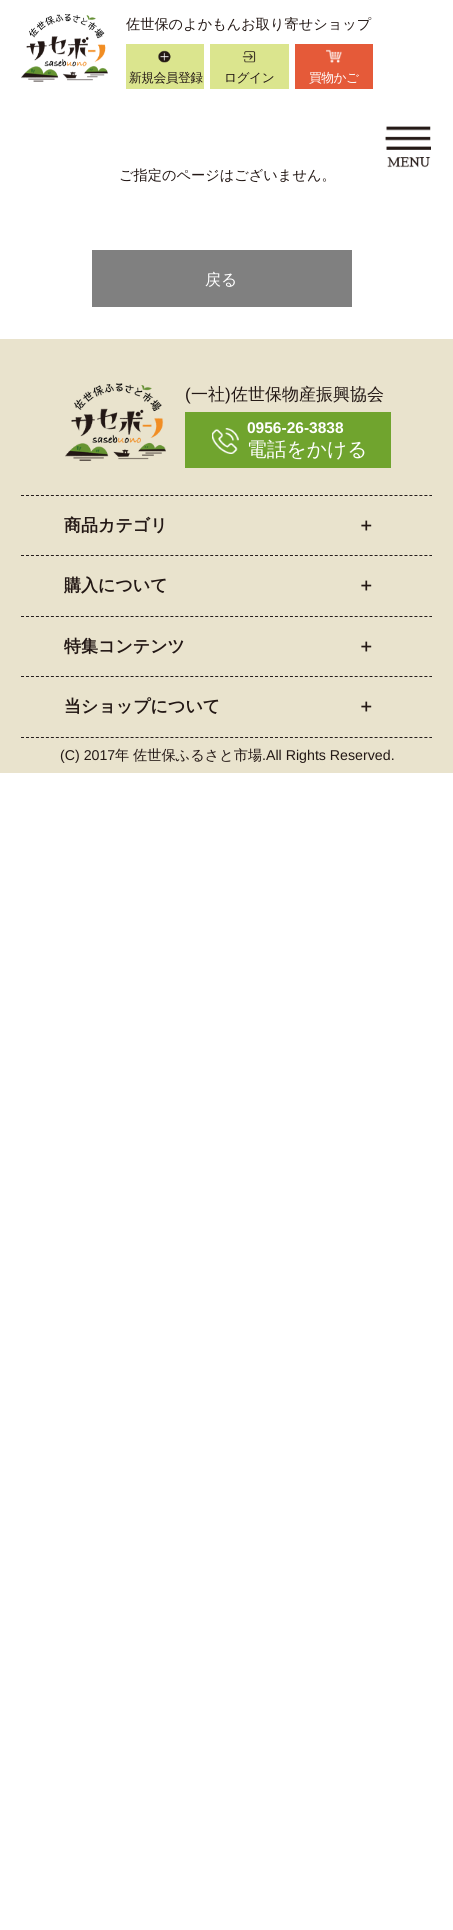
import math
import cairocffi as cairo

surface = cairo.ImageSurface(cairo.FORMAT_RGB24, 453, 1930)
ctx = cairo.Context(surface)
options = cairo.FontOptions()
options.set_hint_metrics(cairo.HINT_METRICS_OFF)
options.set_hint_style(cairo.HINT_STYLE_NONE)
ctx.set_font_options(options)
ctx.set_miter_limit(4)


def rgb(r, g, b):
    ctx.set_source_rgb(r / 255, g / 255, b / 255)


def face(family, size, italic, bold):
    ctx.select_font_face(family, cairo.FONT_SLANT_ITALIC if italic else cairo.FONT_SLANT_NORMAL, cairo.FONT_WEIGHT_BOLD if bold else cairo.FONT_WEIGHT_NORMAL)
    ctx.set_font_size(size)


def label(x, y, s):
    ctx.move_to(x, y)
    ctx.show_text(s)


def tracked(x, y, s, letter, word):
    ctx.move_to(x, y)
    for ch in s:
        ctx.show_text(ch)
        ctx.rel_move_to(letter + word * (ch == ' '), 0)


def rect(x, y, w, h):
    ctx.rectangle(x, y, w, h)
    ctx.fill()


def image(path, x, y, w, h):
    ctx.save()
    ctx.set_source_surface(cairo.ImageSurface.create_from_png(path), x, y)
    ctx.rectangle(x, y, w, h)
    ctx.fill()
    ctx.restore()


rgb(255, 255, 255)
ctx.paint()
image('image0.png', 21, 14, 87, 68)
face('WenQuanYi Zen Hei Medium', 14.2, 0, 0)
rgb(35, 24, 21)
label(126, 29, '佐世保のよかもんお取り寄せショップ')
rgb(219, 229, 142)
rect(126, 44, 78, 45)
image('image1.png', 158, 50, 13, 13)
face('WenQuanYi Zen Hei Medium', 12.75, 0, 0)
rgb(35, 24, 21)
tracked(129, 82, '新規会員登録', -0.5, 0)
rgb(219, 229, 142)
rect(210, 44, 79, 45)
image('image2.png', 242, 51, 14, 12)
rgb(35, 24, 21)
tracked(224, 82, 'ログイン', -0.5, 0)
rgb(229, 90, 57)
rect(295, 44, 78, 45)
image('image3.png', 326, 49, 16, 14)
rgb(255, 255, 255)
tracked(309, 82, '買物かご', -0.5, 0)
image('image4.png', 385, 126, 46, 42)
face('WenQuanYi Zen Hei Medium', 14.2, 0, 0)
rgb(35, 24, 21)
label(119, 180, 'ご指定のページはございません。')
rgb(128, 128, 128)
rect(92, 250, 260, 57)
face('WenQuanYi Zen Hei Medium', 16, 0, 0)
rgb(255, 255, 255)
label(205, 285, '戻る')
rgb(233, 227, 205)
rect(0, 339, 453, 434)
image('image5.png', 65, 383, 101, 78)
face('Liberation Sans', 17, 0, 0)
rgb(35, 24, 21)
label(185, 400, '(')
face('WenQuanYi Zen Hei Medium', 17, 0, 0)
label(191, 400, '一社')
face('Liberation Sans', 17, 0, 0)
label(225, 400, ')')
face('WenQuanYi Zen Hei Medium', 17, 0, 0)
label(231, 400, '佐世保物産振興協会')
rgb(112, 164, 46)
rect(185, 412, 206, 56)
image('image6.png', 212, 428, 27, 26)
face('Liberation Sans', 15.5, 0, 1)
rgb(255, 255, 255)
label(247, 433, '0956-26-3838')
face('WenQuanYi Zen Hei Medium', 19.75, 0, 0)
label(247, 456, '電話をかける')
face('Liberation Sans', 14.2, 0, 0)
rgb(35, 24, 21)
label(60, 760, '(C) 2017')
face('WenQuanYi Zen Hei Medium', 14.2, 0, 0)
label(115, 760, '年')
label(133, 760, '佐世保ふるさと市場')
face('Liberation Sans', 14.2, 0, 0)
label(262, 760, '.All Rights Reserved.')
ctx.new_path()
ctx.move_to(21, 495.5)
ctx.line_to(432, 495.5)
rgb(37, 30, 28)
ctx.set_line_width(1)
ctx.set_dash([3, 1.98])
ctx.stroke()
ctx.new_path()
ctx.move_to(21, 555.5)
ctx.line_to(432, 555.5)
ctx.stroke()
face('WenQuanYi Zen Hei', 17, 0, 1)
rgb(35, 24, 21)
label(64, 531, '商品カテゴリ')
face('WenQuanYi Zen Hei', 18, 0, 1)
label(357, 531, '＋')
ctx.new_path()
ctx.move_to(21, 616.5)
ctx.line_to(432, 616.5)
rgb(37, 30, 28)
ctx.stroke()
face('WenQuanYi Zen Hei', 17, 0, 1)
rgb(35, 24, 21)
label(64, 591, '購入について')
face('WenQuanYi Zen Hei', 18, 0, 1)
label(357, 591, '＋')
ctx.new_path()
ctx.move_to(21, 676.5)
ctx.line_to(432, 676.5)
rgb(37, 30, 28)
ctx.stroke()
face('WenQuanYi Zen Hei', 17, 0, 1)
rgb(35, 24, 21)
label(64, 652, '特集コンテンツ')
face('WenQuanYi Zen Hei', 18, 0, 1)
label(357, 652, '＋')
ctx.new_path()
ctx.move_to(21, 737.5)
ctx.line_to(432, 737.5)
rgb(37, 30, 28)
ctx.stroke()
face('WenQuanYi Zen Hei', 17, 0, 1)
rgb(35, 24, 21)
label(64, 712, '当ショップについて')
face('WenQuanYi Zen Hei', 18, 0, 1)
label(357, 712, '＋')
surface.write_to_png('render.png')
